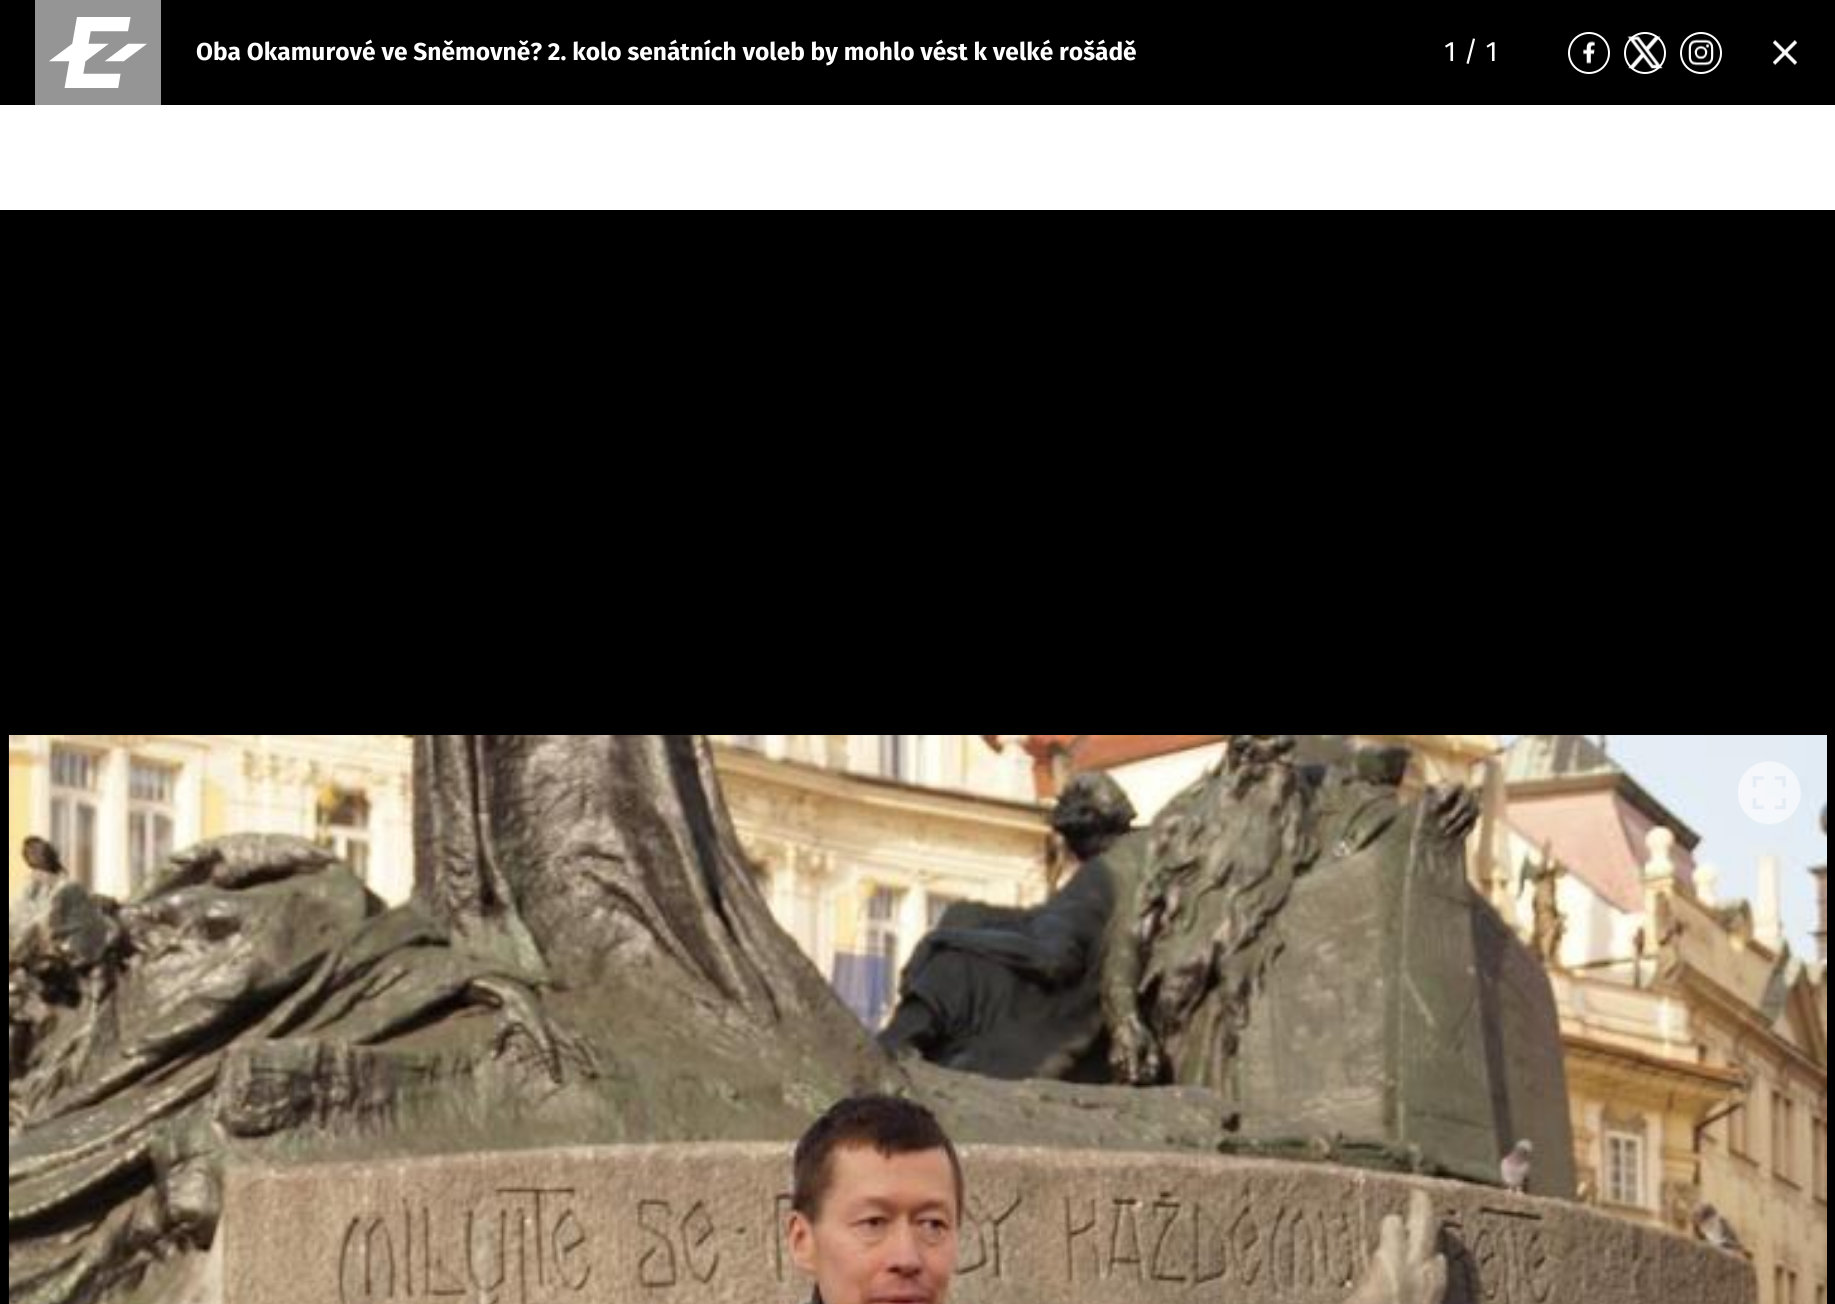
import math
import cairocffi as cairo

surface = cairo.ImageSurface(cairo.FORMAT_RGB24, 1835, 1304)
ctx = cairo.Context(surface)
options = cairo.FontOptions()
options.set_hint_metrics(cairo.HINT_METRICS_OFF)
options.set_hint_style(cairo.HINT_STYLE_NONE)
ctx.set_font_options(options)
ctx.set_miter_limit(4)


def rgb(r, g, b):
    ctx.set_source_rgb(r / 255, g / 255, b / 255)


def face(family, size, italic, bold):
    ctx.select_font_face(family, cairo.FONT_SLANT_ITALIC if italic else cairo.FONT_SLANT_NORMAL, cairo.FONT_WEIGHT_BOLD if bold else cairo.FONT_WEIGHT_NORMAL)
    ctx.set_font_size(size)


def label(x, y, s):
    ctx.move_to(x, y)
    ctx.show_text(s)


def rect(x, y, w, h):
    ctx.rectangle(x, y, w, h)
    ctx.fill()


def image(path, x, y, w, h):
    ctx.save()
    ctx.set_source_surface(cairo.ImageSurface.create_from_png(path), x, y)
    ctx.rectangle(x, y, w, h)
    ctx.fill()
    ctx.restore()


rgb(255, 255, 255)
ctx.paint()
rgb(0, 0, 0)
rect(0, 0, 1835, 105)
rgb(149, 149, 149)
rect(35, 0, 126, 105)
image('image0.png', 49, 17, 98, 71)
face('Fira Sans', 24.5, 0, 1)
rgb(255, 255, 255)
label(196, 60, 'Oba Okamurové ve Sněmovně? 2. kolo senátních voleb by mohlo vést k velké rošádě')
face('Fira Sans', 28, 0, 0)
label(1444, 61, '1 / 1')
ctx.new_path()
ctx.arc(1589, 53, 20, 0, 2 * math.pi)
ctx.stroke()
image('image1.png', 1583, 41, 12, 23)
ctx.arc(1645, 53, 20, 0, 2 * math.pi)
ctx.stroke()
image('image2.png', 1627, 36, 36, 33)
ctx.arc(1701, 53, 20, 0, 2 * math.pi)
ctx.stroke()
image('image3.png', 1688, 39, 26, 27)
image('image4.png', 1772, 39, 26, 27)
rgb(0, 0, 0)
rect(0, 210, 1835, 1094)
image('image5.png', 8, 735, 1819, 569)
image('image6.png', 1738, 761, 63, 64)
surface.write_to_png('render.png')
